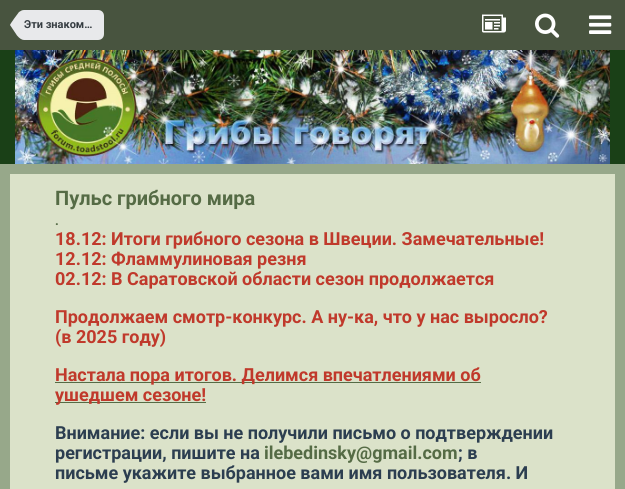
import math
import cairocffi as cairo

surface = cairo.ImageSurface(cairo.FORMAT_RGB24, 625, 489)
ctx = cairo.Context(surface)
options = cairo.FontOptions()
options.set_hint_metrics(cairo.HINT_METRICS_OFF)
options.set_hint_style(cairo.HINT_STYLE_NONE)
ctx.set_font_options(options)
ctx.set_miter_limit(4)


def rgb(r, g, b):
    ctx.set_source_rgb(r / 255, g / 255, b / 255)


def face(family, size, italic, bold):
    ctx.select_font_face(family, cairo.FONT_SLANT_ITALIC if italic else cairo.FONT_SLANT_NORMAL, cairo.FONT_WEIGHT_BOLD if bold else cairo.FONT_WEIGHT_NORMAL)
    ctx.set_font_size(size)


def label(x, y, s):
    ctx.move_to(x, y)
    ctx.show_text(s)


def rect(x, y, w, h):
    ctx.rectangle(x, y, w, h)
    ctx.fill()


def image(path, x, y, w, h):
    ctx.save()
    ctx.set_source_surface(cairo.ImageSurface.create_from_png(path), x, y)
    ctx.rectangle(x, y, w, h)
    ctx.fill()
    ctx.restore()


rgb(26, 64, 23)
ctx.paint()
rgb(72, 84, 63)
rect(0, 0, 625, 50)
rgb(232, 233, 235)
ctx.new_path()
ctx.move_to(24, 10)
ctx.line_to(98, 10)
ctx.curve_to(101.5, 10, 104, 12.5, 104, 16)
ctx.line_to(104, 34)
ctx.curve_to(104, 37.5, 101.5, 40, 98, 40)
ctx.line_to(24, 40)
ctx.close_path()
ctx.fill()
ctx.new_path()
ctx.move_to(24, 25)
ctx.line_to(24, 40)
ctx.curve_to(22, 40, 19.5, 38.5, 17, 35.5)
ctx.line_to(10, 25)
ctx.close_path()
ctx.move_to(24, 25)
ctx.line_to(10, 25)
ctx.curve_to(10, 24, 18.5, 12.5, 19, 12)
ctx.curve_to(20.5, 11, 22, 10, 24, 10)
ctx.close_path()
ctx.fill()
face('Roboto', 11, 0, 1)
rgb(53, 60, 65)
label(24, 28, 'Эти знаком…')
image('image0.png', 482, 14, 24, 19)
image('image1.png', 535, 13, 25, 25)
image('image2.png', 589, 15, 23, 19)
image('image3.png', 15, 50, 595, 114)
rgb(151, 168, 138)
rect(0, 164, 625, 325)
rgb(219, 226, 201)
rect(10, 174, 605, 315)
face('Roboto', 20, 0, 1)
rgb(85, 107, 69)
label(55, 205, 'Пульс грибного мира')
face('Roboto', 13, 0, 1)
label(55, 225, '.')
face('Roboto', 18, 0, 1)
rgb(192, 57, 43)
label(55, 245, '18.12: Итоги грибного сезона в Швеции. Замечательные!')
label(55, 265, '12.12: Фламмулиновая резня')
label(55, 285, '02.12: В Саратовской области сезон продолжается')
label(55, 323, 'Продолжаем смотр-конкурс. А ну-ка, что у нас выросло?')
label(55, 343, '(в 2025 году)')
rgb(85, 107, 69)
rect(55, 382, 426, 1)
rgb(192, 57, 43)
label(55, 381, 'Настала пора итогов. Делимся впечатлениями об')
rgb(85, 107, 69)
rect(55, 402, 151, 1)
rgb(192, 57, 43)
label(55, 401, 'ушедшем сезоне!')
rgb(44, 62, 80)
label(55, 439, 'Внимание: если вы не получили письмо о подтверждении')
label(55, 459, 'регистрации, пишите на')
rgb(85, 107, 69)
label(264, 459, 'ilebedinsky@gmail.com')
rgb(44, 62, 80)
label(458, 459, '; в')
label(55, 479, 'письме укажите выбранное вами имя пользователя. И')
surface.write_to_png('render.png')
